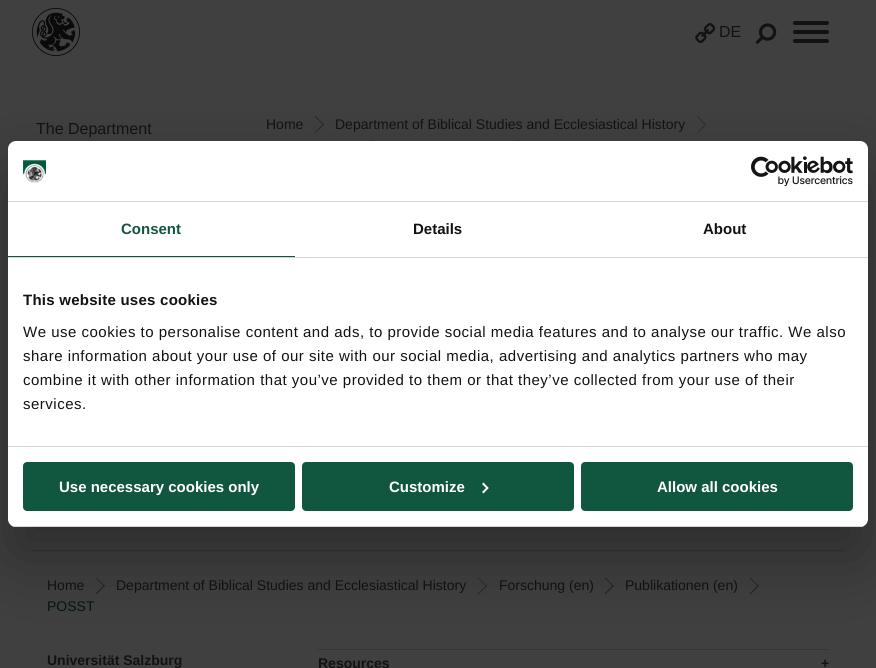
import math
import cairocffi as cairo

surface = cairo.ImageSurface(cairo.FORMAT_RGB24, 876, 668)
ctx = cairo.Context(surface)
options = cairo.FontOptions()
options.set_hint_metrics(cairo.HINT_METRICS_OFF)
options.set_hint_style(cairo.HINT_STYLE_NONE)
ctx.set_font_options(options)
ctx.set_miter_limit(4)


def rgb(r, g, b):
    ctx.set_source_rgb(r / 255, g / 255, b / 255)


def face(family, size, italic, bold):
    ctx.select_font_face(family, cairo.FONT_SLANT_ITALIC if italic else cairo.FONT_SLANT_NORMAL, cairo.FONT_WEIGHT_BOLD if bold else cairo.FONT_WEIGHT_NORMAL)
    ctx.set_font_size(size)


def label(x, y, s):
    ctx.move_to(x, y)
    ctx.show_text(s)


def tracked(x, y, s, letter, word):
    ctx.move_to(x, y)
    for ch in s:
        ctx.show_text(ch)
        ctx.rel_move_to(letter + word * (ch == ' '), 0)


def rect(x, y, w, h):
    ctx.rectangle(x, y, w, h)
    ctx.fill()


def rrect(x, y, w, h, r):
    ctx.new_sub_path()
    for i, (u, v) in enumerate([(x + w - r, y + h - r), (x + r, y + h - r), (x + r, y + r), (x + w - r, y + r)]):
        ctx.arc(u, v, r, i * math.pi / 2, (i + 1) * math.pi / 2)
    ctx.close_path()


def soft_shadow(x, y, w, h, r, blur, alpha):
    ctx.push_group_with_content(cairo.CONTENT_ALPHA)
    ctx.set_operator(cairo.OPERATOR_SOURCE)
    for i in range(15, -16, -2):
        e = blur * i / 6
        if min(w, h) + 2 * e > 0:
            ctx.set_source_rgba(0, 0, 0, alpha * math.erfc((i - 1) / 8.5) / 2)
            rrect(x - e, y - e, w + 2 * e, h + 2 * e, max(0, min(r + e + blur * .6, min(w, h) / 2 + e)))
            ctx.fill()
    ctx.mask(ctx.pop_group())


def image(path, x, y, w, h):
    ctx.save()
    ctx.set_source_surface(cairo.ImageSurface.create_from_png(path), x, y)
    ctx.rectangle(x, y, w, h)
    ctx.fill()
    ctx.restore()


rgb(64, 64, 64)
ctx.paint()
image('image0.png', 32, 8, 48, 48)
image('image1.png', 695, 23, 21, 20)
face('Liberation Sans', 16, 0, 0)
rgb(18, 18, 18)
label(719, 37, 'DE')
image('image2.png', 755, 23, 22, 21)
rrect(793, 21, 36, 4, 2)
ctx.fill()
rrect(793, 30, 36, 4, 2)
ctx.fill()
rrect(793, 39, 36, 4, 2)
ctx.fill()
label(36, 134, 'The Department')
face('Liberation Sans', 14, 0, 0)
label(266, 129, 'Home')
rgb(41, 41, 41)
ctx.new_path()
ctx.move_to(315.5, 116)
ctx.line_to(324, 124.5)
ctx.line_to(323, 125)
ctx.line_to(314.5, 116.5)
ctx.close_path()
ctx.fill()
ctx.new_path()
ctx.move_to(323, 124)
ctx.line_to(324, 124.5)
ctx.line_to(315.5, 133)
ctx.line_to(314.5, 132.5)
ctx.close_path()
ctx.fill()
rgb(18, 18, 18)
label(335, 129, 'Department of Biblical Studies and Ecclesiastical History')
rgb(41, 41, 41)
ctx.new_path()
ctx.move_to(697.5, 116)
ctx.line_to(706, 124.5)
ctx.line_to(705.5, 125)
ctx.line_to(697, 116.5)
ctx.close_path()
ctx.fill()
ctx.new_path()
ctx.move_to(705.5, 124)
ctx.line_to(706, 124.5)
ctx.line_to(697.5, 133)
ctx.line_to(697, 132.5)
ctx.close_path()
ctx.fill()
ctx.new_path()
ctx.move_to(373, 140)
ctx.line_to(381.5, 148.5)
ctx.line_to(380.5, 149)
ctx.line_to(372, 140.5)
ctx.close_path()
ctx.fill()
ctx.new_path()
ctx.move_to(518, 140)
ctx.line_to(526.5, 148.5)
ctx.line_to(525.5, 149)
ctx.line_to(517, 140.5)
ctx.close_path()
ctx.fill()
rgb(54, 54, 54)
rect(32, 550, 812, 1)
rgb(18, 18, 18)
label(47, 590, 'Home')
rgb(40, 40, 40)
ctx.new_path()
ctx.move_to(96.5, 577.5)
ctx.line_to(105, 586)
ctx.line_to(104, 586.5)
ctx.line_to(95.5, 578)
ctx.close_path()
ctx.fill()
ctx.new_path()
ctx.move_to(104, 585)
ctx.line_to(105, 586)
ctx.line_to(96.5, 594.5)
ctx.line_to(95.5, 593.5)
ctx.close_path()
ctx.fill()
rgb(18, 18, 18)
label(116, 590, 'Department of Biblical Studies and Ecclesiastical History')
rgb(40, 40, 40)
ctx.new_path()
ctx.move_to(478.5, 577.5)
ctx.line_to(487, 586)
ctx.line_to(486.5, 586.5)
ctx.line_to(478, 578)
ctx.close_path()
ctx.fill()
ctx.new_path()
ctx.move_to(486.5, 585)
ctx.line_to(487, 586)
ctx.line_to(478.5, 594.5)
ctx.line_to(478, 593.5)
ctx.close_path()
ctx.fill()
rgb(18, 18, 18)
label(499, 590, 'Forschung (en)')
rgb(40, 40, 40)
ctx.new_path()
ctx.move_to(605.5, 577.5)
ctx.line_to(614, 586)
ctx.line_to(613, 586.5)
ctx.line_to(604.5, 578)
ctx.close_path()
ctx.fill()
ctx.new_path()
ctx.move_to(613, 585)
ctx.line_to(614, 586)
ctx.line_to(605.5, 594.5)
ctx.line_to(604.5, 593.5)
ctx.close_path()
ctx.fill()
rgb(18, 18, 18)
label(625, 590, 'Publikationen (en)')
rgb(40, 40, 40)
ctx.new_path()
ctx.move_to(750.5, 577.5)
ctx.line_to(759, 586)
ctx.line_to(758, 586.5)
ctx.line_to(749.5, 578)
ctx.close_path()
ctx.fill()
ctx.new_path()
ctx.move_to(758, 585)
ctx.line_to(759, 586)
ctx.line_to(750.5, 594.5)
ctx.line_to(749.5, 593.5)
ctx.close_path()
ctx.fill()
rgb(4, 22, 16)
label(47, 611, 'POSST')
face('Liberation Sans', 14, 0, 1)
rgb(18, 18, 18)
label(47, 665, 'Universität Salzburg')
rgb(54, 54, 54)
rect(318, 649, 511, 1)
rgb(18, 18, 18)
label(318, 668, 'Resources')
label(821, 668, '+')
rgb(0, 0, 0)
soft_shadow(8, 173, 860, 386, 8, 34, 0.3)
rgb(255, 255, 255)
rrect(8, 141, 860, 386, 8)
ctx.fill()
rgb(214, 214, 214)
rect(8, 201, 860, 1)
image('image3.png', 23, 160, 23, 23)
image('image4.png', 751, 156, 102, 30)
rect(8, 257, 860, 1)
rgb(17, 87, 64)
rect(8, 256, 287, 1)
face('Liberation Sans', 15, 0, 1)
label(121, 234, 'Consent')
rgb(18, 18, 18)
label(413, 234, 'Details')
label(703, 234, 'About')
rgb(214, 214, 214)
rect(8, 446, 860, 1)
rgb(18, 18, 18)
tracked(23, 305, 'This website uses cookies', 0.25, 0)
face('Liberation Sans', 15, 0, 0)
tracked(23, 337, 'We use cookies to personalise content and ads, to provide social media features and to analyse our traffic. We also', 0.5, 0)
tracked(23, 361, 'share information about your use of our site with our social media, advertising and analytics partners who may', 0.5, 0)
tracked(23, 385, 'combine it with other information that you’ve provided to them or that they’ve collected from your use of their', 0.5, 0)
tracked(23, 409, 'services.', 0.5, 0)
ctx.save()
rrect(8, 141, 860, 386, 8)
ctx.clip()
rgb(214, 214, 214)
rect(8, 526, 860, 1)
ctx.restore()
rgb(17, 87, 64)
rrect(24, 463, 270, 47, 3)
ctx.fill_preserve()
ctx.stroke()
face('Liberation Sans', 15, 0, 1)
rgb(255, 255, 255)
label(59, 492, 'Use necessary cookies only')
rgb(17, 87, 64)
rrect(303, 463, 270, 47, 3)
ctx.fill_preserve()
ctx.stroke()
rgb(255, 255, 255)
label(389, 492, 'Customize')
ctx.new_path()
ctx.move_to(483.5, 482.5)
ctx.line_to(488.5, 488)
ctx.line_to(487.5, 489.5)
ctx.line_to(482, 484)
ctx.close_path()
ctx.fill()
ctx.new_path()
ctx.move_to(487.5, 486.5)
ctx.line_to(488.5, 488)
ctx.line_to(483.5, 493.5)
ctx.line_to(482, 492)
ctx.close_path()
ctx.fill()
rgb(17, 87, 64)
rrect(582, 463, 270, 47, 3)
ctx.fill_preserve()
ctx.stroke()
rgb(255, 255, 255)
label(657, 492, 'Allow all cookies')
surface.write_to_png('render.png')
